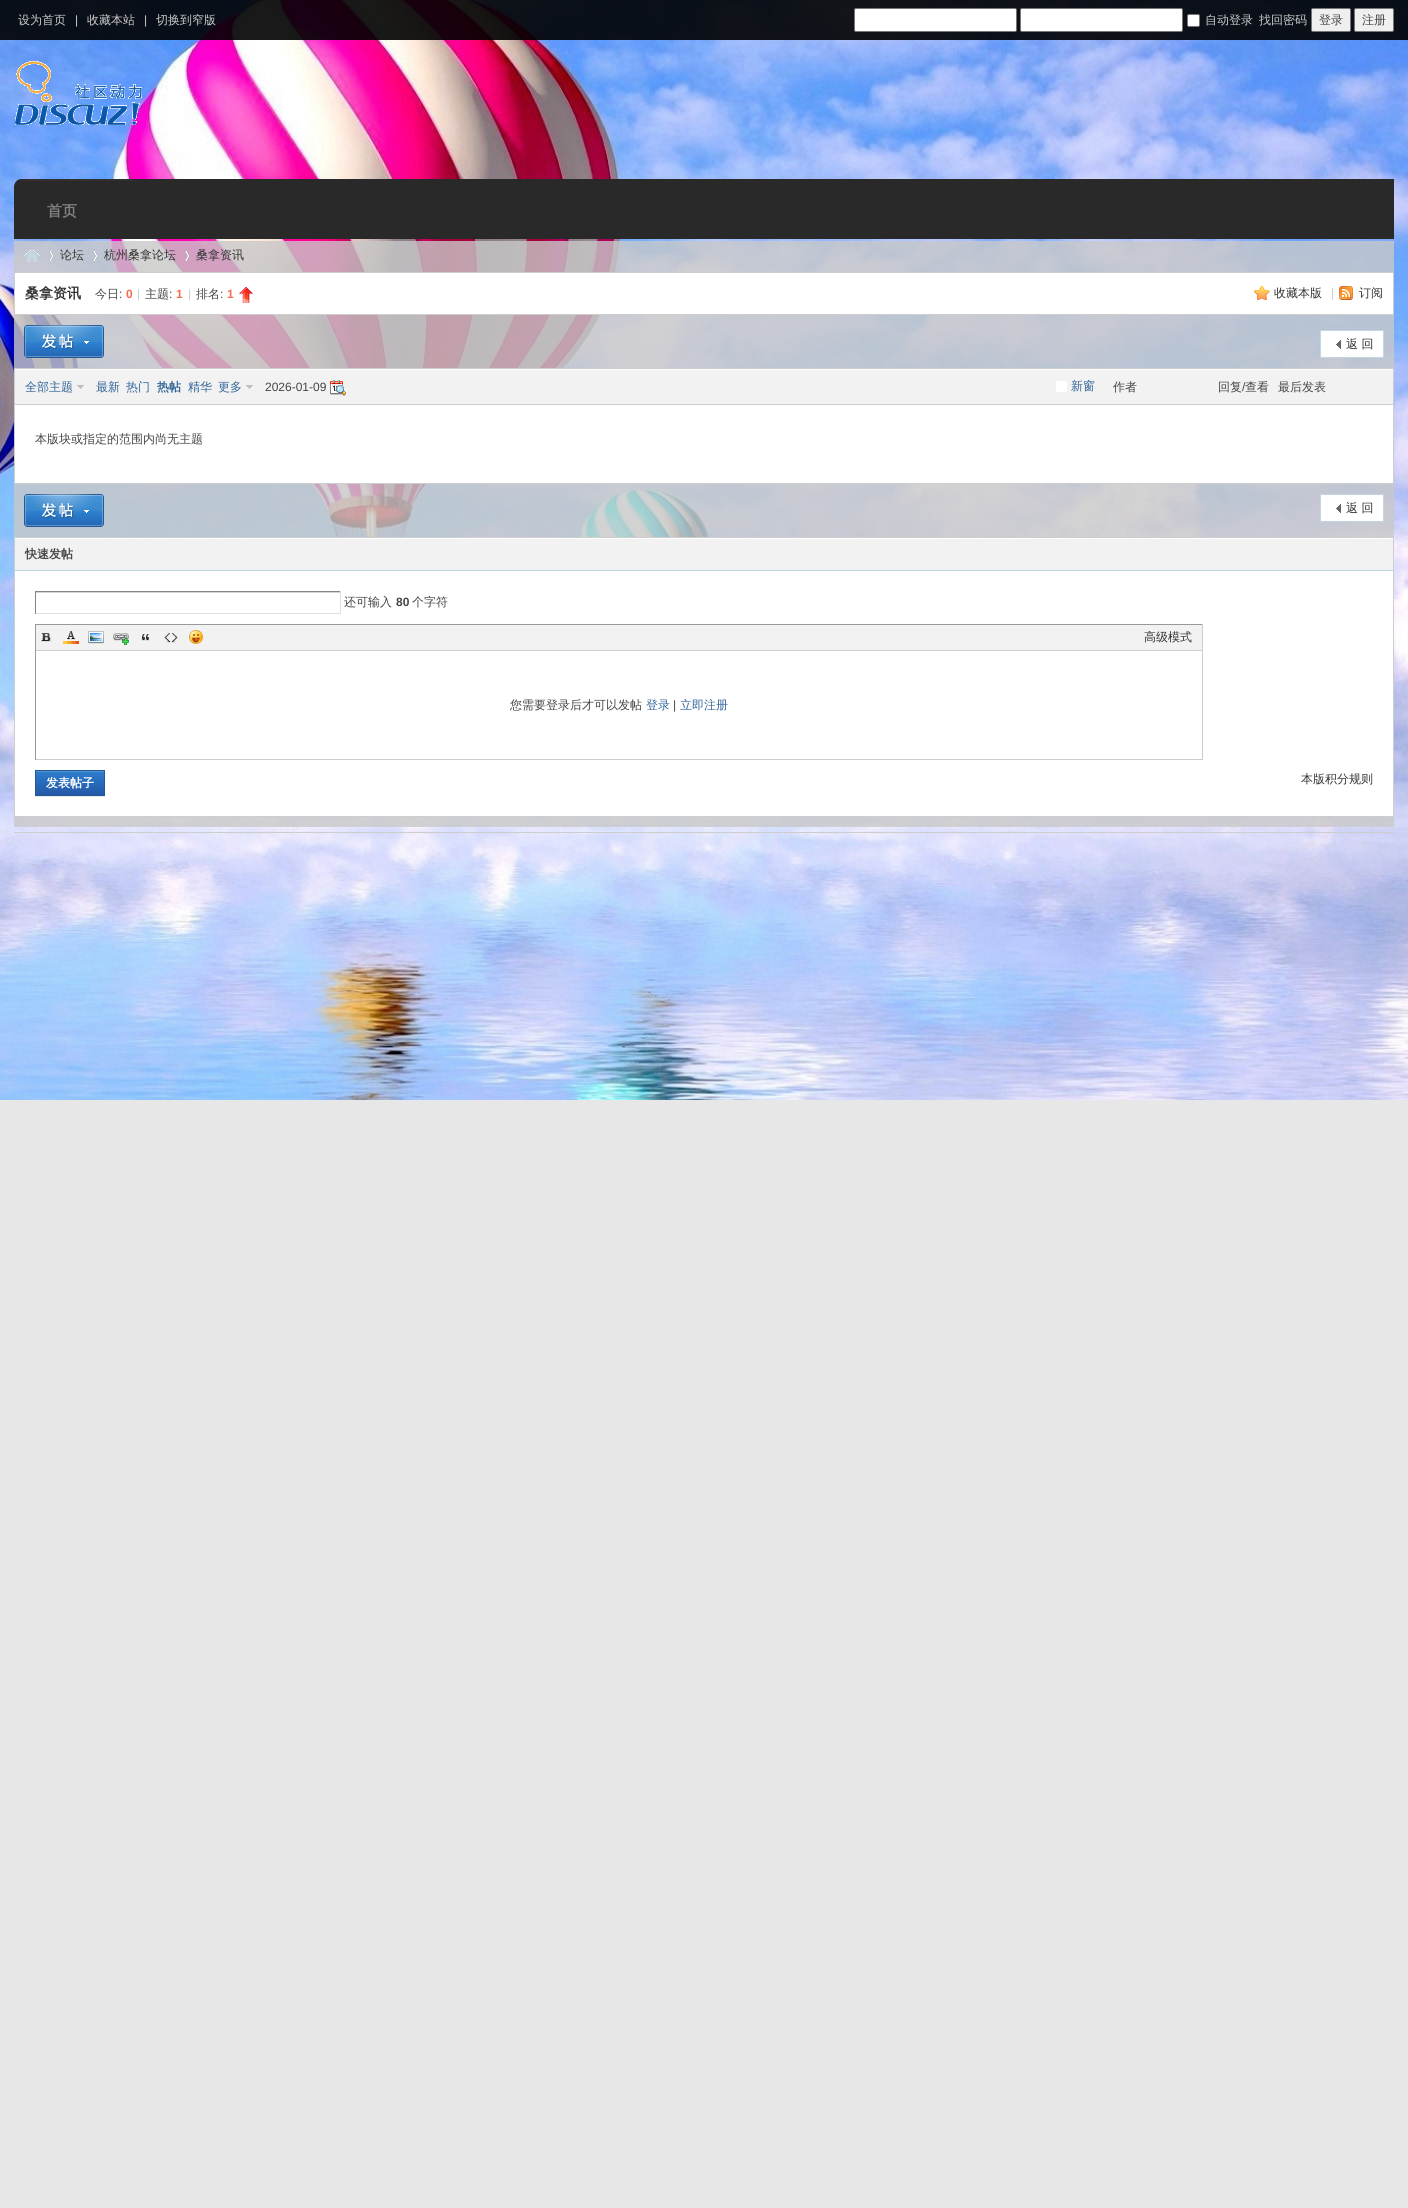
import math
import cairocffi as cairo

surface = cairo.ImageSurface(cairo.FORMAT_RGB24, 1408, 2208)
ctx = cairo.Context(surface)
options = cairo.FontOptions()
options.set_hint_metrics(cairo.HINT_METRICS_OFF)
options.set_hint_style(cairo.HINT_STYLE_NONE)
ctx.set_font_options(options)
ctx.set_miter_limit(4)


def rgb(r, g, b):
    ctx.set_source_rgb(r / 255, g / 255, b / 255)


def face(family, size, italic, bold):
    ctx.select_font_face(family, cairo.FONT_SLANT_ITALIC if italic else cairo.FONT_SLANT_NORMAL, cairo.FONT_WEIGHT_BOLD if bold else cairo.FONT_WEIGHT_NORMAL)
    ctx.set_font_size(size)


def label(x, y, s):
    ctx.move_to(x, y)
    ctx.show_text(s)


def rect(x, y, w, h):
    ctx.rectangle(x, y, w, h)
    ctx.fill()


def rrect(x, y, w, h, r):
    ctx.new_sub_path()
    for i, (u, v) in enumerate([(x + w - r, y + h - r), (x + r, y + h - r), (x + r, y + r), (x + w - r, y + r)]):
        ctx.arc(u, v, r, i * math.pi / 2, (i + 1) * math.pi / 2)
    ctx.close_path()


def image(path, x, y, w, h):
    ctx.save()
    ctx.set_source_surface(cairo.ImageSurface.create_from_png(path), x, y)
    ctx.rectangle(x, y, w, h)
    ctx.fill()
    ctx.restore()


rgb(232, 231, 231)
ctx.paint()
image('image0.png', 0, 0, 1408, 1100)
ctx.set_source_rgba(0, 0, 0, 0.9)
rect(0, 0, 1408, 40)
face('WenQuanYi Zen Hei Medium', 12, 0, 0)
rgb(204, 204, 204)
label(18, 24, '设为首页')
face('Liberation Sans', 12, 0, 0)
label(75, 24, '|')
face('WenQuanYi Zen Hei Medium', 12, 0, 0)
label(87, 24, '收藏本站')
face('Liberation Sans', 12, 0, 0)
label(144, 24, '|')
face('WenQuanYi Zen Hei Medium', 12, 0, 0)
label(156, 24, '切换到窄版')
rgb(255, 255, 255)
rrect(854.5, 8.5, 162, 23, 1.5)
ctx.fill_preserve()
rgb(118, 118, 118)
ctx.set_line_width(1)
ctx.stroke()
rgb(255, 255, 255)
rrect(1020.5, 8.5, 162, 23, 1.5)
ctx.fill_preserve()
rgb(118, 118, 118)
ctx.stroke()
rgb(255, 255, 255)
rrect(1187.5, 14.5, 12, 12, 1.5)
ctx.fill_preserve()
rgb(118, 118, 118)
ctx.stroke()
rgb(204, 204, 204)
label(1205, 24, '自动登录')
label(1259, 24, '找回密码')
rgb(239, 239, 239)
rrect(1311.5, 8.5, 39, 23, 1.5)
ctx.fill_preserve()
rgb(118, 118, 118)
ctx.stroke()
rgb(68, 68, 68)
label(1319, 24, '登录')
rgb(239, 239, 239)
rrect(1354.5, 8.5, 39, 23, 1.5)
ctx.fill_preserve()
rgb(118, 118, 118)
ctx.stroke()
rgb(68, 68, 68)
label(1362, 24, '注册')
image('image1.png', 15, 61, 127, 64)
rgb(41, 41, 41)
ctx.new_path()
ctx.move_to(22, 179)
ctx.line_to(1394, 179)
ctx.line_to(1394, 239)
ctx.line_to(14, 239)
ctx.line_to(14, 187)
ctx.curve_to(14, 182.5, 17.5, 179, 22, 179)
ctx.close_path()
ctx.fill()
ctx.save()
ctx.new_path()
ctx.move_to(22, 179)
ctx.line_to(1394, 179)
ctx.line_to(1394, 239)
ctx.line_to(14, 239)
ctx.line_to(14, 187)
ctx.curve_to(14, 182.5, 17.5, 179, 22, 179)
ctx.close_path()
ctx.clip()
rgb(48, 48, 48)
rect(14, 179, 120, 2)
ctx.restore()
face('WenQuanYi Zen Hei', 15, 0, 1)
rgb(128, 128, 128)
label(47, 216, '首页')
ctx.set_source_rgba(0.784, 0.784, 0.784, 0.8)
rect(14, 241, 1380, 586)
image('image2.png', 24, 250, 16, 12)
image('image3.png', 49, 251, 4, 10)
face('WenQuanYi Zen Hei Medium', 12, 0, 0)
rgb(51, 51, 51)
label(60, 259, '论坛')
image('image4.png', 93, 251, 4, 10)
label(104, 259, '杭州桑拿论坛')
image('image5.png', 185, 251, 4, 10)
label(196, 259, '桑拿资讯')
rgb(255, 255, 255)
ctx.rectangle(14.5, 272.5, 1379, 42)
ctx.fill_preserve()
rgb(205, 205, 205)
ctx.stroke()
face('WenQuanYi Zen Hei', 14, 0, 1)
rgb(51, 51, 51)
label(25, 298, '桑拿资讯')
face('WenQuanYi Zen Hei Medium', 12, 0, 0)
rgb(68, 68, 68)
label(95, 298, '今日')
face('Liberation Sans', 12, 0, 0)
label(119, 298, ':')
face('Liberation Sans', 12, 0, 1)
rgb(242, 108, 79)
label(126, 298, '0')
face('Liberation Sans', 12, 0, 0)
rgb(204, 204, 204)
label(137, 298, '|')
face('WenQuanYi Zen Hei Medium', 12, 0, 0)
rgb(68, 68, 68)
label(145, 298, '主题')
face('Liberation Sans', 12, 0, 0)
label(169, 298, ':')
face('Liberation Sans', 12, 0, 1)
rgb(242, 108, 79)
label(176, 298, '1')
face('Liberation Sans', 12, 0, 0)
rgb(204, 204, 204)
label(188, 298, '|')
face('WenQuanYi Zen Hei Medium', 12, 0, 0)
rgb(68, 68, 68)
label(196, 298, '排名')
face('Liberation Sans', 12, 0, 0)
label(220, 298, ':')
face('Liberation Sans', 12, 0, 1)
rgb(242, 108, 79)
label(227, 298, '1')
image('image6.png', 239, 287, 14, 16)
image('image7.png', 1254, 286, 16, 14)
face('WenQuanYi Zen Hei Medium', 12, 0, 0)
rgb(51, 51, 51)
label(1274, 297, '收藏本版')
face('Liberation Sans', 12, 0, 0)
rgb(204, 204, 204)
label(1331, 297, '|')
image('image8.png', 1339, 286, 14, 14)
face('WenQuanYi Zen Hei Medium', 12, 0, 0)
rgb(51, 51, 51)
label(1359, 297, '订阅')
image('image9.png', 24, 325, 80, 33)
rgb(255, 255, 255)
rect(1321, 331, 62, 26)
image('image10.png', 1336, 340, 5, 9)
ctx.rectangle(1320.5, 330.5, 63, 27)
rgb(194, 213, 227)
ctx.stroke()
rgb(51, 51, 51)
label(1346, 348, '返 回')
rgb(255, 255, 255)
ctx.rectangle(14.5, 368.5, 1379, 115)
ctx.fill_preserve()
rgb(205, 205, 205)
ctx.stroke()
rgb(242, 242, 242)
rect(15, 370, 1378, 34)
rgb(205, 205, 205)
rect(15, 404, 1378, 1)
rgb(51, 102, 153)
label(25, 391, '全部主题')
image('image11.png', 77, 385, 7, 4)
label(96, 391, '最新')
label(126, 391, '热门')
face('WenQuanYi Zen Hei', 12, 0, 1)
label(157, 391, '热帖')
face('WenQuanYi Zen Hei Medium', 12, 0, 0)
label(188, 391, '精华')
label(218, 391, '更多')
image('image11.png', 246, 385, 7, 4)
face('Liberation Sans', 12, 0, 0)
rgb(68, 68, 68)
label(265, 391, '2026-01-09')
image('image12.png', 330, 380, 16, 16)
rgb(255, 255, 255)
rect(1056, 381, 11, 11)
face('WenQuanYi Zen Hei Medium', 12, 0, 0)
rgb(51, 102, 153)
label(1071, 390, '新窗')
rgb(68, 68, 68)
label(1113, 391, '作者')
label(1218, 391, '回复')
face('Liberation Sans', 12, 0, 0)
label(1242, 391, '/')
face('WenQuanYi Zen Hei Medium', 12, 0, 0)
label(1245, 391, '查看')
label(1278, 391, '最后发表')
label(35, 443, '本版块或指定的范围内尚无主题')
image('image13.png', 24, 494, 80, 33)
rgb(255, 255, 255)
rect(1321, 495, 62, 26)
image('image10.png', 1336, 504, 5, 9)
ctx.rectangle(1320.5, 494.5, 63, 27)
rgb(194, 213, 227)
ctx.stroke()
rgb(51, 51, 51)
label(1346, 512, '返 回')
rgb(255, 255, 255)
rect(15, 571, 1378, 245)
ctx.rectangle(14.5, 537.5, 1379, 279)
rgb(205, 205, 205)
ctx.stroke()
rgb(242, 242, 242)
rect(15, 539, 1378, 31)
rgb(255, 255, 255)
rect(15, 538, 1378, 1)
rgb(194, 213, 227)
rect(15, 570, 1378, 1)
face('WenQuanYi Zen Hei', 12, 0, 1)
rgb(68, 68, 68)
label(25, 558, '快速发帖')
rgb(212, 212, 212)
rect(35, 592, 306, 1)
rgb(132, 132, 132)
rect(35, 591, 306, 1)
rgb(224, 224, 224)
rect(340, 591, 1, 23)
rect(35, 613, 306, 1)
rgb(132, 132, 132)
rect(35, 591, 1, 23)
face('WenQuanYi Zen Hei Medium', 12, 0, 0)
rgb(68, 68, 68)
label(344, 606, '还可输入')
face('Liberation Sans', 12, 0, 1)
label(396, 606, '80')
face('WenQuanYi Zen Hei Medium', 12, 0, 0)
label(412, 606, '个字符')
rgb(153, 153, 153)
rect(35, 624, 1168, 1)
rgb(204, 204, 204)
rect(1202, 624, 1, 136)
rect(35, 759, 1168, 1)
rgb(153, 153, 153)
rect(35, 624, 1, 136)
rgb(242, 242, 242)
rect(36, 625, 1166, 25)
rgb(205, 205, 205)
rect(36, 650, 1166, 1)
image('image14.png', 41, 633, 11, 9)
image('image15.png', 63, 631, 16, 13)
image('image16.png', 88, 631, 16, 13)
image('image17.png', 113, 633, 17, 12)
image('image18.png', 141, 634, 9, 7)
image('image19.png', 164, 633, 14, 10)
image('image20.png', 188, 630, 15, 14)
rgb(51, 51, 51)
label(1144, 641, '高级模式')
rgb(68, 68, 68)
label(510, 709, '您需要登录后才可以发帖')
rgb(51, 102, 153)
label(646, 709, '登录')
face('Liberation Sans', 12, 0, 0)
rgb(68, 68, 68)
label(673, 709, '|')
face('WenQuanYi Zen Hei Medium', 12, 0, 0)
rgb(51, 102, 153)
label(680, 709, '立即注册')
rgb(229, 229, 229)
rect(35, 796, 70, 1)
image('image21.png', 36, 771, 68, 24)
ctx.rectangle(35.5, 770.5, 69, 25)
rgb(35, 89, 148)
ctx.stroke()
face('WenQuanYi Zen Hei', 12, 0, 1)
rgb(255, 255, 255)
label(46, 787, '发表帖子')
face('WenQuanYi Zen Hei Medium', 12, 0, 0)
rgb(51, 51, 51)
label(1301, 783, '本版积分规则')
rgb(205, 205, 205)
rect(14, 832, 1380, 1)
surface.write_to_png('render.png')
